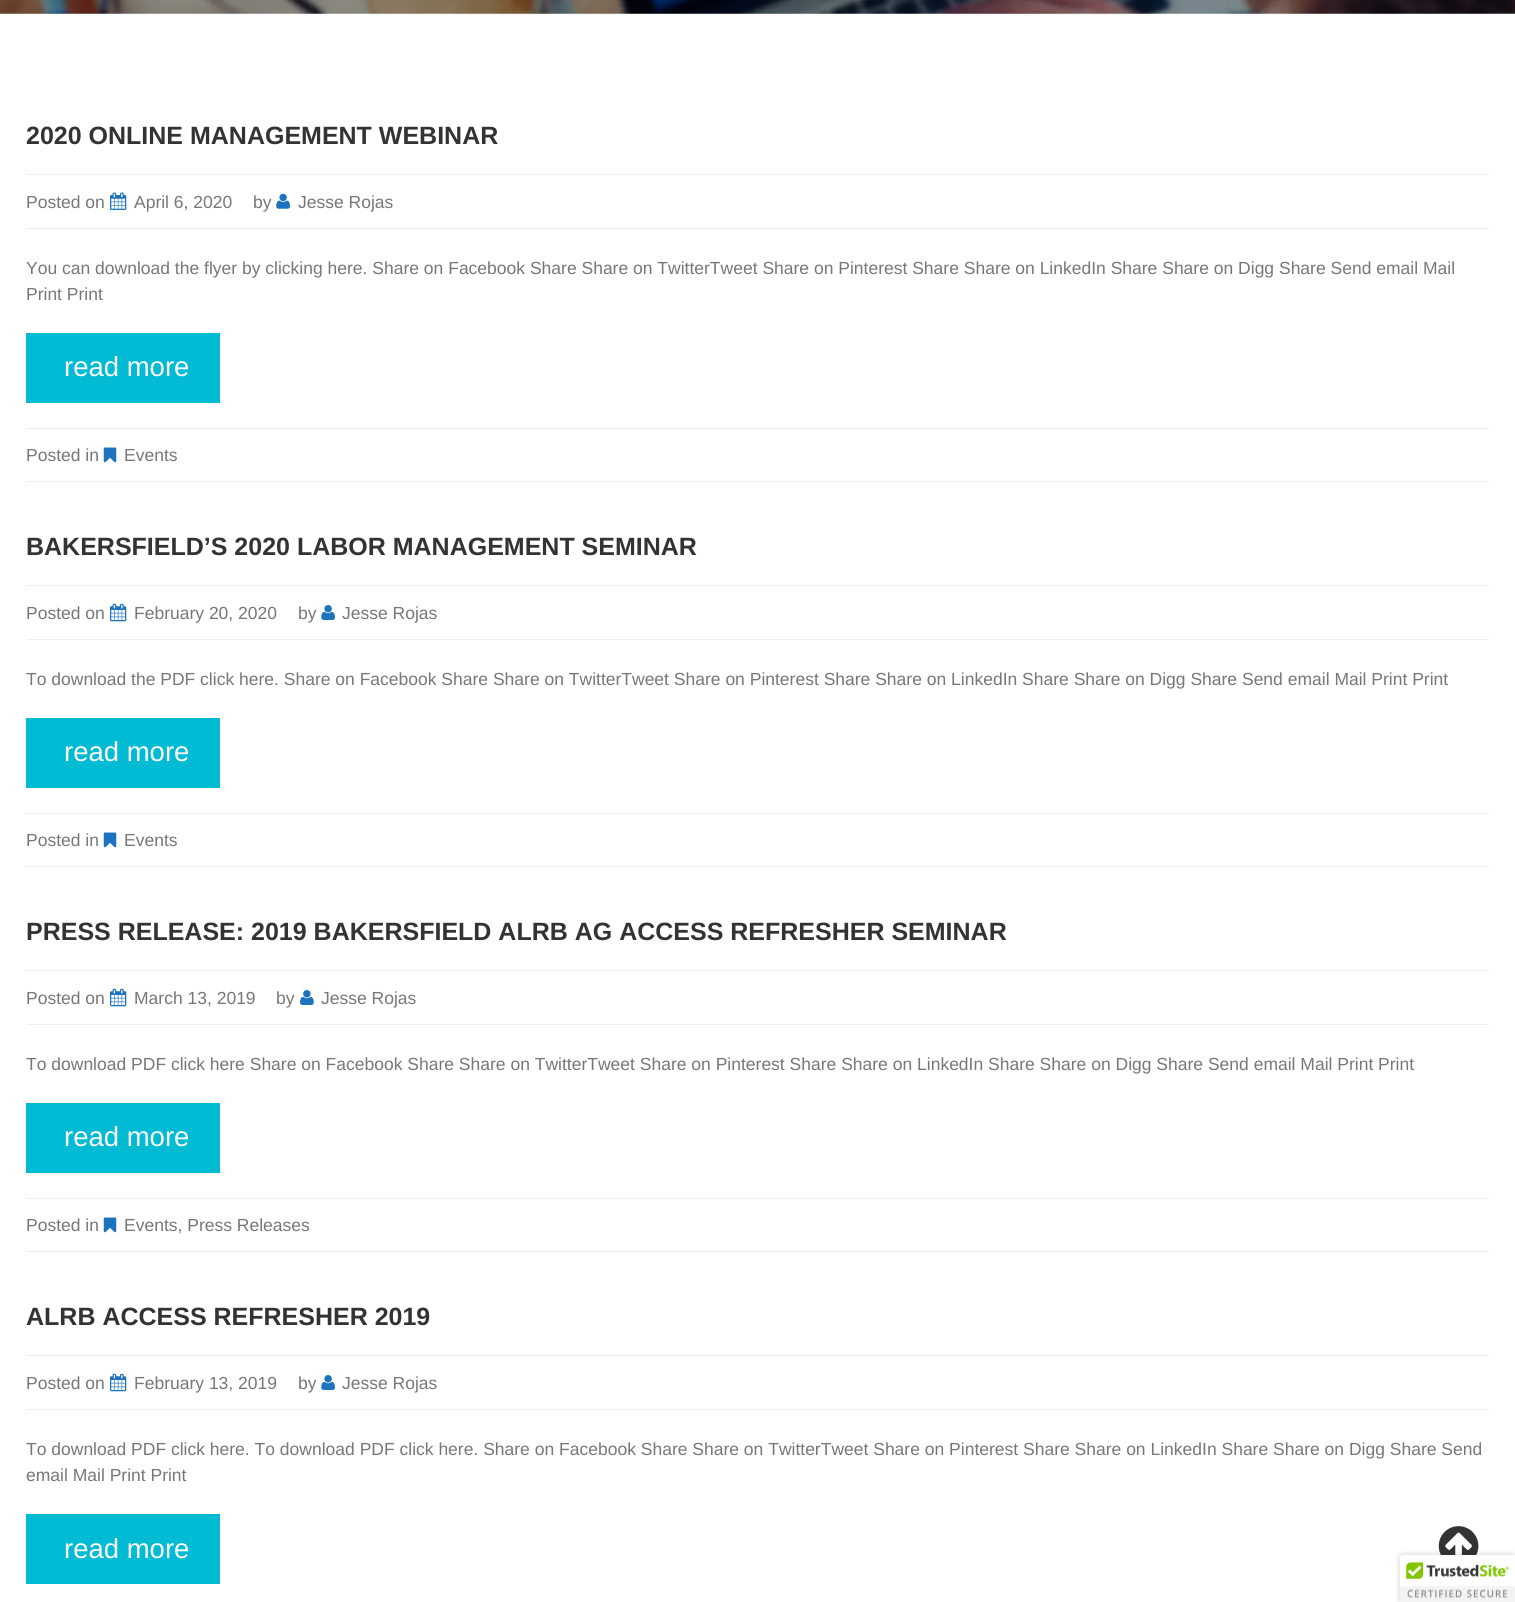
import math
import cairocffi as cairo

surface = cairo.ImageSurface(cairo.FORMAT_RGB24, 1515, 1602)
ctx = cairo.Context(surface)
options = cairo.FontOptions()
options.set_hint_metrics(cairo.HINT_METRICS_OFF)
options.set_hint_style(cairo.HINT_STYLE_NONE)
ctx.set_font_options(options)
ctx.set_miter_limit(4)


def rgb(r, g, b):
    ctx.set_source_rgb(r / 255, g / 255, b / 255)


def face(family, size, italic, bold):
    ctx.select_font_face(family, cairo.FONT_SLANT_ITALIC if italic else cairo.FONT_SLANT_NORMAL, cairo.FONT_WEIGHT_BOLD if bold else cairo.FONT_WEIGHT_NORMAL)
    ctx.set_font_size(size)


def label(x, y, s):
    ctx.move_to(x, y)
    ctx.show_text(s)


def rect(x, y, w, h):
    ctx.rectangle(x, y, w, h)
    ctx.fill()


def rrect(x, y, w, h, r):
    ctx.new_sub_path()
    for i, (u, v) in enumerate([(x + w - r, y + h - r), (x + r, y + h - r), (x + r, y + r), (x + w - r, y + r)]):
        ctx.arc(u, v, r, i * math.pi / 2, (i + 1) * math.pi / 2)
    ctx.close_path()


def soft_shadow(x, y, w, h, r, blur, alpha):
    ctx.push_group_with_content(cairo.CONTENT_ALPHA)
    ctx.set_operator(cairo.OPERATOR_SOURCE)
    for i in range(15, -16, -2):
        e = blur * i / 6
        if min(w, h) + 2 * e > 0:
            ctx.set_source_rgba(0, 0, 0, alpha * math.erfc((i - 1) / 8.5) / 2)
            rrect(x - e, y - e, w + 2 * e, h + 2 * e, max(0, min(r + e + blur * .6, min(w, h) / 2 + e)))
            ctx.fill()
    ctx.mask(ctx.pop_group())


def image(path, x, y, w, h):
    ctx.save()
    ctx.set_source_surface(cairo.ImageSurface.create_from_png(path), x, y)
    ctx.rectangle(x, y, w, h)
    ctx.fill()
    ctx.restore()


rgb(255, 255, 255)
ctx.paint()
image('image0.png', 0, 0, 1515, 14)
face('Liberation Sans', 25, 0, 1)
rgb(51, 51, 51)
label(26, 144, '2020 ONLINE MANAGEMENT WEBINAR')
rgb(239, 239, 239)
rect(26, 174, 1463, 1)
rect(26, 228, 1463, 1)
face('Liberation Sans', 17.5, 0, 0)
rgb(119, 119, 119)
label(26, 208, 'Posted on')
image('image1.png', 110, 192, 17, 18)
label(134, 208, 'April 6, 2020')
label(253, 208, 'by')
image('image2.png', 276, 193, 14, 16)
label(298, 208, 'Jesse Rojas')
label(26, 274, 'You can download the flyer by clicking here. Share on Facebook Share Share on TwitterTweet Share on Pinterest Share Share on LinkedIn Share Share on Digg Share Send email Mail')
label(26, 300, 'Print Print')
rgb(0, 187, 211)
rect(26, 333, 194, 70)
face('Liberation Sans', 27.5, 0, 0)
rgb(255, 255, 255)
label(64, 376, 'read more')
rgb(239, 239, 239)
rect(26, 428, 1463, 1)
rect(26, 481, 1463, 1)
face('Liberation Sans', 17.5, 0, 0)
rgb(119, 119, 119)
label(26, 461, 'Posted in')
image('image3.png', 103, 447, 14, 16)
label(124, 461, 'Events')
face('Liberation Sans', 25, 0, 1)
rgb(51, 51, 51)
label(26, 555, 'BAKERSFIELD’S 2020 LABOR MANAGEMENT SEMINAR')
rgb(239, 239, 239)
rect(26, 585, 1463, 1)
rect(26, 639, 1463, 1)
face('Liberation Sans', 17.5, 0, 0)
rgb(119, 119, 119)
label(26, 619, 'Posted on')
image('image4.png', 110, 603, 17, 19)
label(134, 619, 'February 20, 2020')
label(298, 619, 'by')
image('image5.png', 321, 605, 14, 15)
label(342, 619, 'Jesse Rojas')
label(26, 685, 'To download the PDF click here. Share on Facebook Share Share on TwitterTweet Share on Pinterest Share Share on LinkedIn Share Share on Digg Share Send email Mail Print Print')
rgb(0, 187, 211)
rect(26, 718, 194, 70)
face('Liberation Sans', 27.5, 0, 0)
rgb(255, 255, 255)
label(64, 761, 'read more')
rgb(239, 239, 239)
rect(26, 813, 1463, 1)
rect(26, 866, 1463, 1)
face('Liberation Sans', 17.5, 0, 0)
rgb(119, 119, 119)
label(26, 846, 'Posted in')
image('image3.png', 103, 832, 14, 16)
label(124, 846, 'Events')
face('Liberation Sans', 25, 0, 1)
rgb(51, 51, 51)
label(26, 940, 'PRESS RELEASE: 2019 BAKERSFIELD ALRB AG ACCESS REFRESHER SEMINAR')
rgb(239, 239, 239)
rect(26, 970, 1463, 1)
rect(26, 1024, 1463, 1)
face('Liberation Sans', 17.5, 0, 0)
rgb(119, 119, 119)
label(26, 1004, 'Posted on')
image('image4.png', 110, 988, 17, 19)
label(134, 1004, 'March 13, 2019')
label(276, 1004, 'by')
image('image6.png', 300, 990, 14, 15)
label(321, 1004, 'Jesse Rojas')
label(26, 1070, 'To download PDF click here Share on Facebook Share Share on TwitterTweet Share on Pinterest Share Share on LinkedIn Share Share on Digg Share Send email Mail Print Print')
rgb(0, 187, 211)
rect(26, 1103, 194, 70)
face('Liberation Sans', 27.5, 0, 0)
rgb(255, 255, 255)
label(64, 1146, 'read more')
rgb(239, 239, 239)
rect(26, 1198, 1463, 1)
rect(26, 1251, 1463, 1)
face('Liberation Sans', 17.5, 0, 0)
rgb(119, 119, 119)
label(26, 1231, 'Posted in')
image('image3.png', 103, 1217, 14, 16)
label(124, 1231, 'Events, Press Releases')
face('Liberation Sans', 25, 0, 1)
rgb(51, 51, 51)
label(26, 1325, 'ALRB ACCESS REFRESHER 2019')
rgb(239, 239, 239)
rect(26, 1355, 1463, 1)
rect(26, 1409, 1463, 1)
face('Liberation Sans', 17.5, 0, 0)
rgb(119, 119, 119)
label(26, 1389, 'Posted on')
image('image4.png', 110, 1373, 17, 19)
label(134, 1389, 'February 13, 2019')
label(298, 1389, 'by')
image('image5.png', 321, 1375, 14, 15)
label(342, 1389, 'Jesse Rojas')
label(26, 1455, 'To download PDF click here. To download PDF click here. Share on Facebook Share Share on TwitterTweet Share on Pinterest Share Share on LinkedIn Share Share on Digg Share Send')
label(26, 1481, 'email Mail Print Print')
rgb(0, 187, 211)
rect(26, 1514, 194, 70)
face('Liberation Sans', 27.5, 0, 0)
rgb(255, 255, 255)
label(64, 1558, 'read more')
image('image7.png', 1438, 1526, 41, 29)
rgb(0, 0, 0)
soft_shadow(1400, 1555, 115, 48, 2.5, 3, 0.2)
rgb(255, 255, 255)
ctx.new_path()
ctx.move_to(1402.5, 1555)
ctx.line_to(1515, 1555)
ctx.line_to(1515, 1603)
ctx.line_to(1400, 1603)
ctx.line_to(1400, 1557.5)
ctx.curve_to(1400, 1556, 1401, 1555, 1402.5, 1555)
ctx.close_path()
ctx.fill()
image('image8.png', 1400, 1555, 115, 47)
surface.write_to_png('render.png')
